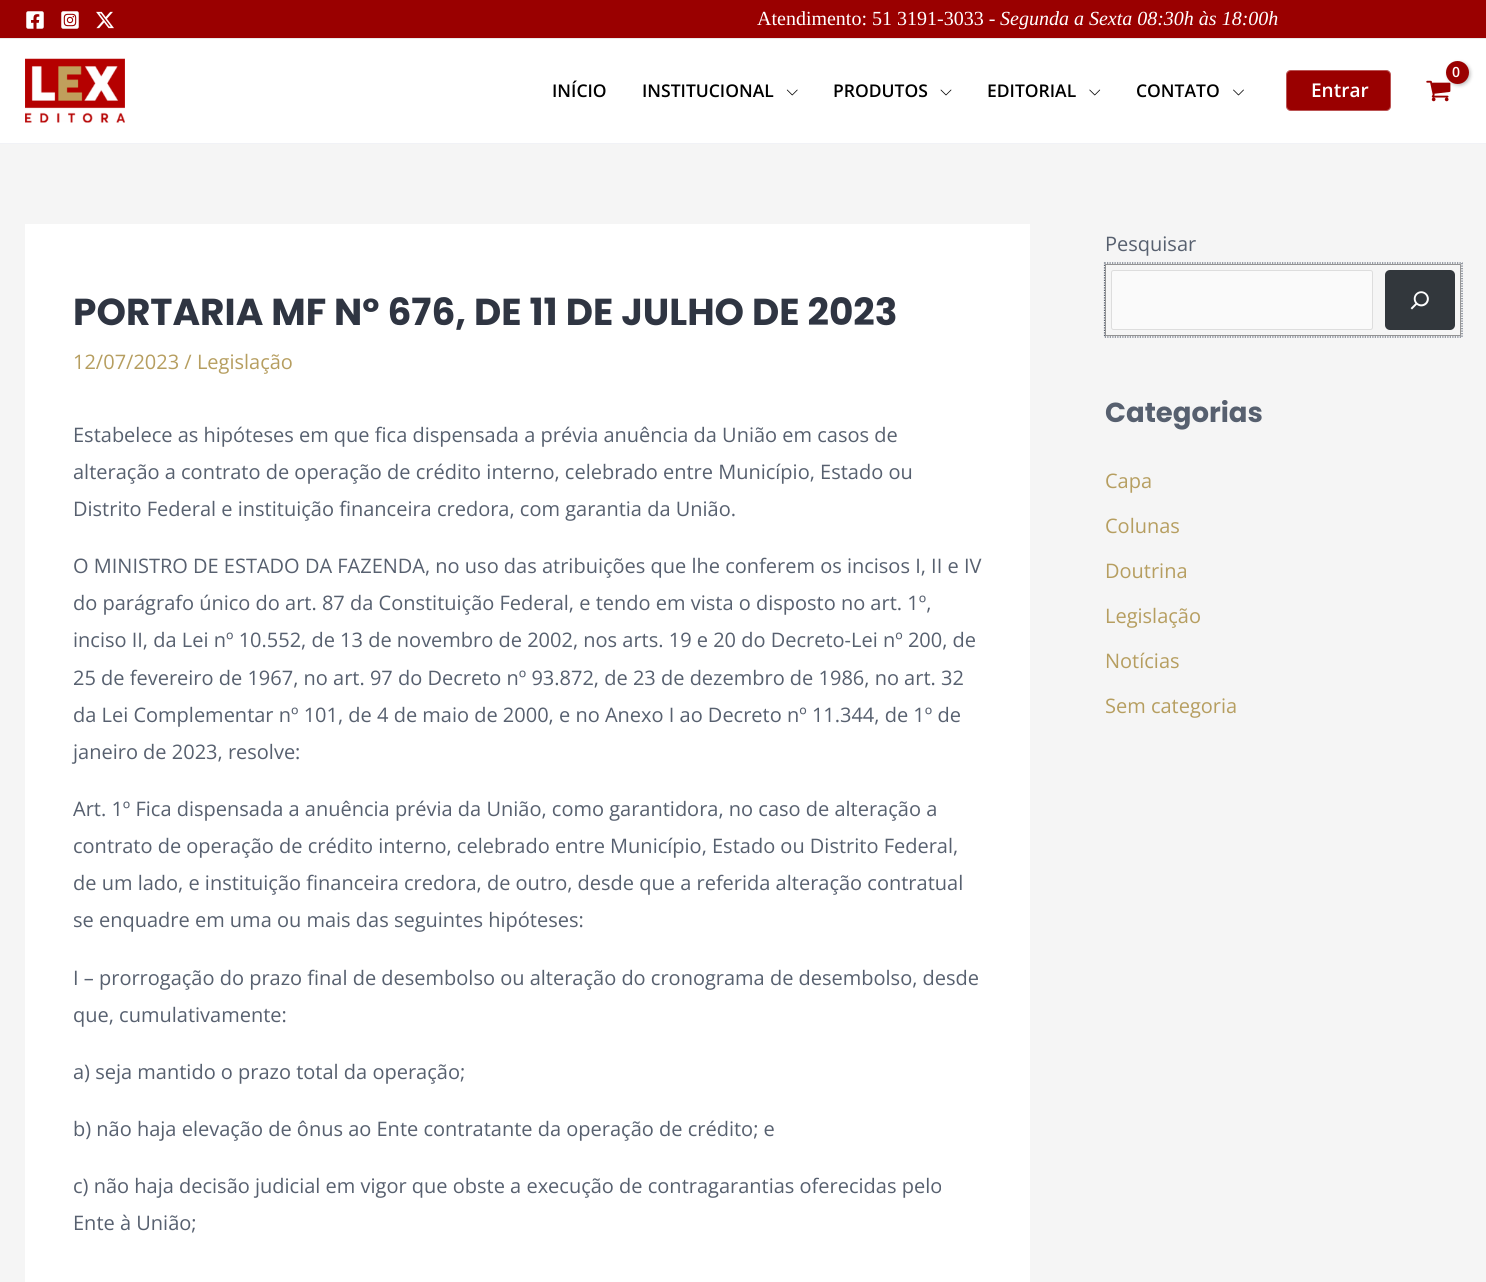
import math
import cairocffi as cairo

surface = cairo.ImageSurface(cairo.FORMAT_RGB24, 1486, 1282)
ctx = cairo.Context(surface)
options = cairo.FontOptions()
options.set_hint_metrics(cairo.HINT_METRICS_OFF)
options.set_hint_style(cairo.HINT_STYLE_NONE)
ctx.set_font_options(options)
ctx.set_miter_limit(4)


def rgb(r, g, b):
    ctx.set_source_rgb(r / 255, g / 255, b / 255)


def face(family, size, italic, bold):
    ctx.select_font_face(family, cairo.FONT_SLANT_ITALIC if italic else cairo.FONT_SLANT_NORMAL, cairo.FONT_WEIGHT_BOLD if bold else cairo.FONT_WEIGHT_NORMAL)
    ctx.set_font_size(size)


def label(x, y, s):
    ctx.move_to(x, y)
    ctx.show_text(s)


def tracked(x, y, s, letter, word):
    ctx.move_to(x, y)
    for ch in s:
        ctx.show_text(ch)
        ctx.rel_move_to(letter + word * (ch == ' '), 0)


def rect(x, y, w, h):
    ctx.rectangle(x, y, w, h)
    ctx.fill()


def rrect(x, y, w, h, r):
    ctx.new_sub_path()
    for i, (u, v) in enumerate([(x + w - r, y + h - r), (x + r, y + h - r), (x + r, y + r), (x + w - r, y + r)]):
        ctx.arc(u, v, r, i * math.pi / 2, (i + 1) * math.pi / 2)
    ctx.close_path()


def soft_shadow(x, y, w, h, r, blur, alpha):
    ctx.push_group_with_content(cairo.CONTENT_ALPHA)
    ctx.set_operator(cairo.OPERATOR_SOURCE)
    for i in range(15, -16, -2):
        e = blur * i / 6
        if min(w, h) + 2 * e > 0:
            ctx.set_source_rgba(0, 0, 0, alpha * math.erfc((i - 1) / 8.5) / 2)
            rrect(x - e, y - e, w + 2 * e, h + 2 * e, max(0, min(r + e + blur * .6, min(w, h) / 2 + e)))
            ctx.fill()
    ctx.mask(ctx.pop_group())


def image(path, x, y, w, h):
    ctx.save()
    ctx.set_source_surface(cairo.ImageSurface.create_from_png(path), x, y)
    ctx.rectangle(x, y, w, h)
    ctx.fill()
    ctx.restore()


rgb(245, 245, 245)
ctx.paint()
rgb(154, 0, 0)
rect(0, 0, 1486, 38)
rgb(234, 234, 234)
rect(0, 38, 1486, 1)
image('image0.png', 26, 11, 18, 18)
image('image1.png', 61, 11, 18, 18)
image('image2.png', 96, 11, 18, 18)
face('Liberation Serif', 20, 0, 0)
rgb(255, 255, 255)
label(757, 25, 'Atendimento: 51 3191-3033 -')
face('Liberation Serif', 20, 1, 0)
label(1000, 25, 'Segunda a Sexta 08:30h às 18:00h')
rect(0, 39, 1486, 104)
rgb(241, 242, 246)
rect(0, 143, 1486, 1)
image('image3.png', 25, 58, 100, 65)
image('image4.png', 1426, 80, 25, 22)
rgb(0, 0, 0)
soft_shadow(1448, 63, 22, 22, 11, 2, 0.3)
rgb(154, 0, 0)
ctx.arc(1457.5, 72.5, 11.5, 0, 2 * math.pi)
ctx.fill()
face('Open Sans SemiBold', 14, 0, 0)
rgb(255, 255, 255)
tracked(1452, 77, '0', -1, 0)
face('Open Sans SemiBold', 17.5, 0, 0)
rgb(0, 0, 0)
label(552, 97, 'INÍCIO')
label(642, 97, 'INSTITUCIONAL')
image('image5.png', 786, 89, 12, 7)
label(833, 97, 'PRODUTOS')
image('image6.png', 940, 89, 12, 7)
label(987, 97, 'EDITORIAL')
image('image7.png', 1089, 89, 12, 7)
label(1136, 97, 'CONTATO')
image('image8.png', 1233, 89, 11, 7)
rgb(154, 0, 0)
rrect(1286, 70, 105, 41, 5)
ctx.fill()
rrect(1286.5, 70.5, 104, 40, 4.5)
ctx.set_source_rgba(1, 1, 1, 0.33)
ctx.set_line_width(1)
ctx.stroke()
face('Open Sans SemiBold', 19, 0, 0)
rgb(255, 255, 255)
label(1311, 97, 'Entrar')
rect(25, 224, 1005, 1058)
face('Poppins', 37.5, 0, 1)
rgb(47, 53, 66)
label(73, 325, 'PORTARIA MF Nº 676, DE 11 DE JULHO DE 2023')
face('Open Sans', 20, 0, 0)
rgb(182, 158, 96)
label(73, 369, '12/07/2023 / Legislação')
rgb(87, 96, 111)
label(73, 442, 'Estabelece as hipóteses em que fica dispensada a prévia anuência da União em casos de')
label(73, 479, 'alteração a contrato de operação de crédito interno, celebrado entre Município, Estado ou')
label(73, 516, 'Distrito Federal e instituição financeira credora, com garantia da União.')
label(73, 573, 'O MINISTRO DE ESTADO DA FAZENDA, no uso das atribuições que lhe conferem os incisos I, II e IV')
label(73, 610, 'do parágrafo único do art. 87 da Constituição Federal, e tendo em vista o disposto no art. 1º,')
label(73, 647, 'inciso II, da Lei nº 10.552, de 13 de novembro de 2002, nos arts. 19 e 20 do Decreto-Lei nº 200, de')
label(73, 685, '25 de fevereiro de 1967, no art. 97 do Decreto nº 93.872, de 23 de dezembro de 1986, no art. 32')
label(73, 722, 'da Lei Complementar nº 101, de 4 de maio de 2000, e no Anexo I ao Decreto nº 11.344, de 1º de')
label(73, 759, 'janeiro de 2023, resolve:')
label(73, 816, 'Art. 1º Fica dispensada a anuência prévia da União, como garantidora, no caso de alteração a')
label(73, 853, 'contrato de operação de crédito interno, celebrado entre Município, Estado ou Distrito Federal,')
label(73, 890, 'de um lado, e instituição financeira credora, de outro, desde que a referida alteração contratual')
label(73, 927, 'se enquadre em uma ou mais das seguintes hipóteses:')
label(73, 985, 'I – prorrogação do prazo final de desembolso ou alteração do cronograma de desembolso, desde')
label(73, 1022, 'que, cumulativamente:')
label(73, 1079, 'a) seja mantido o prazo total da operação;')
label(73, 1136, 'b) não haja elevação de ônus ao Ente contratante da operação de crédito; e')
label(73, 1193, 'c) não haja decisão judicial em vigor que obste a execução de contragarantias oferecidas pelo')
label(73, 1230, 'Ente à União;')
label(1105, 251, 'Pesquisar')
ctx.rectangle(1105.5, 264.5, 355, 71)
rgb(148, 148, 148)
ctx.stroke()
rgb(250, 250, 250)
rrect(1111.5, 270.5, 261, 59, 2)
ctx.fill_preserve()
rgb(221, 221, 221)
ctx.stroke()
rgb(50, 55, 60)
rrect(1385, 270, 70, 60, 5)
ctx.fill()
ctx.new_path()
ctx.move_to(1104.5, 263)
ctx.line_to(1462, 263)
ctx.line_to(1462, 337)
ctx.line_to(1104.5, 337)
ctx.close_path()
rgb(87, 96, 111)
ctx.set_line_width(1.2)
ctx.set_dash([1.25, 1.25])
ctx.stroke()
image('image9.png', 1410, 291, 19, 19)
face('Poppins', 27.5, 0, 1)
label(1105, 422, 'Categorias')
face('Open Sans', 20, 0, 0)
rgb(182, 158, 96)
label(1105, 488, 'Capa')
label(1105, 533, 'Colunas')
label(1105, 578, 'Doutrina')
label(1105, 623, 'Legislação')
label(1105, 668, 'Notícias')
label(1105, 713, 'Sem categoria')
surface.write_to_png('render.png')
